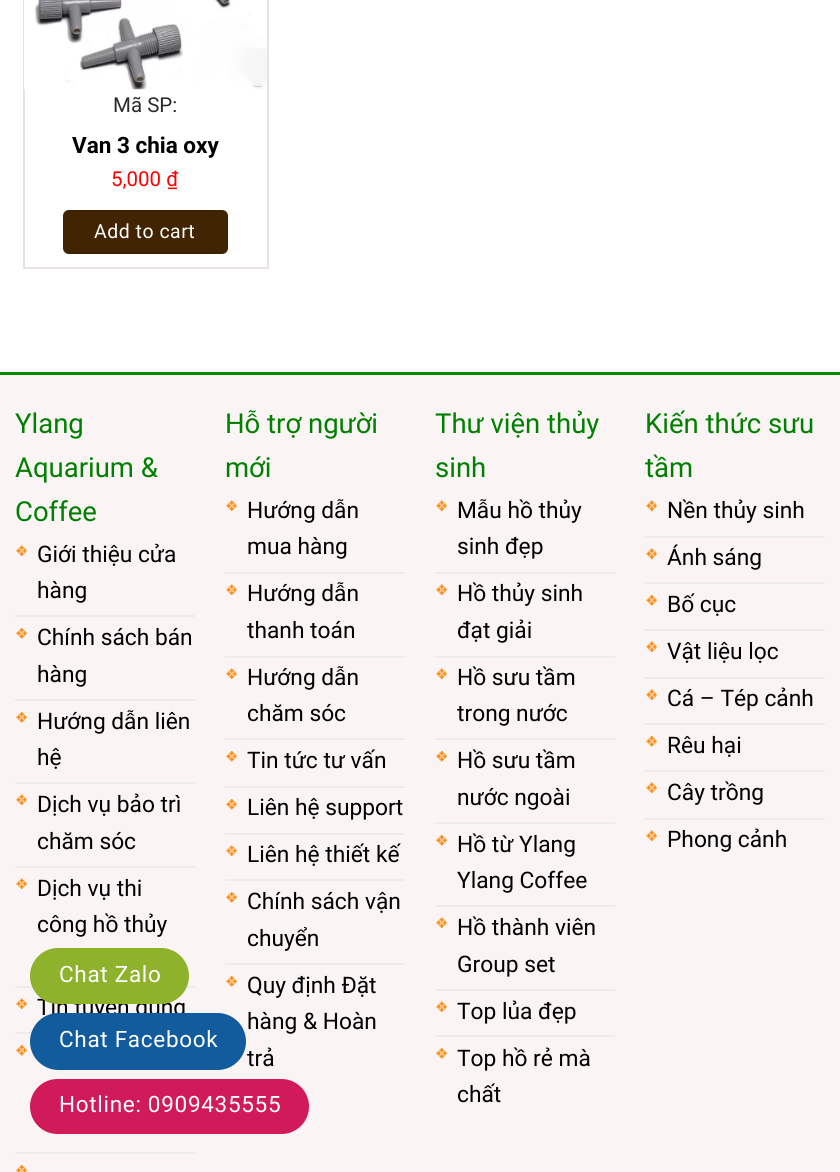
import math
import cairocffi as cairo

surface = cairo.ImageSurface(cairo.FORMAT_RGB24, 840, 1172)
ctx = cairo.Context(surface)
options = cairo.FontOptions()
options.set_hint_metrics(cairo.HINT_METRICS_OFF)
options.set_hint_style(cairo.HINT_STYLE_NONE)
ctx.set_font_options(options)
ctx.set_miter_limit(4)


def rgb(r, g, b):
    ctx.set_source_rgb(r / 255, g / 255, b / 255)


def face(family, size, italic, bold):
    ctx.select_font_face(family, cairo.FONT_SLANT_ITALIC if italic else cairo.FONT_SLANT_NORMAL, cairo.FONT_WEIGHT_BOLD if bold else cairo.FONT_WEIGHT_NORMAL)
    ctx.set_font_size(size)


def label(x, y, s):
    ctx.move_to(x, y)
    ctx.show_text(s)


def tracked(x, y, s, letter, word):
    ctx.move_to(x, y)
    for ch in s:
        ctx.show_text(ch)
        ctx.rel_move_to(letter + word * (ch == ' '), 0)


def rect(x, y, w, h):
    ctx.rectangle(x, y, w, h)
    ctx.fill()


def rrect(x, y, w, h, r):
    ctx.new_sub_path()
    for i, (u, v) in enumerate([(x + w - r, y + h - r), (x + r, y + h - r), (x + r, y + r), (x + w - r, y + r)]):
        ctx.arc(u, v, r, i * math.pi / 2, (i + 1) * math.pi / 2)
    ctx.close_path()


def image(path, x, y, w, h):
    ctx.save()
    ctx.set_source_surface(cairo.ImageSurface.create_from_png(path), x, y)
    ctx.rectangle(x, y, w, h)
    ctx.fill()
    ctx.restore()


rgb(255, 255, 255)
ctx.paint()
ctx.rectangle(24, -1, 244, 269)
rgb(234, 227, 227)
ctx.stroke()
image('image0.png', 24, 0, 243, 90)
face('Roboto', 20.5, 0, 0)
rgb(43, 43, 43)
label(113, 112, 'Mã SP:')
face('Roboto', 22.5, 0, 1)
rgb(0, 0, 0)
label(72, 153, 'Van 3 chia oxy')
face('Roboto', 20.5, 0, 0)
rgb(255, 0, 0)
label(111, 186, '5,000 ₫')
rgb(65, 36, 1)
rrect(63, 210, 165, 44, 6)
ctx.fill()
ctx.rectangle(64, 211, 163, 42)
ctx.set_source_rgba(0, 0, 0, 0.05)
ctx.stroke()
face('Roboto', 19.5, 0, 0)
rgb(255, 255, 255)
tracked(94, 238, 'Add to cart', 0.5, 0)
rgb(251, 244, 244)
rect(0, 375, 840, 797)
rgb(7, 136, 0)
rect(0, 372, 840, 3)
face('Roboto', 27.5, 0, 0)
rgb(0, 128, 0)
label(15, 433, 'Ylang')
label(15, 477, 'Aquarium &')
label(15, 521, 'Coffee')
image('image1.png', 16, 545, 11, 11)
face('Roboto', 22.75, 0, 0)
rgb(0, 0, 0)
label(37, 562, 'Giới thiệu cửa')
label(37, 598, 'hàng')
image('image2.png', 16, 628, 11, 11)
rgb(236, 236, 236)
rect(15, 615, 180, 2)
rgb(0, 0, 0)
label(37, 645, 'Chính sách bán')
label(37, 682, 'hàng')
image('image2.png', 16, 712, 11, 11)
rgb(236, 236, 236)
rect(15, 699, 180, 2)
rgb(0, 0, 0)
label(37, 729, 'Hướng dẫn liên')
label(37, 765, 'hệ')
image('image1.png', 16, 794, 11, 11)
rgb(236, 236, 236)
rect(15, 782, 180, 2)
rgb(0, 0, 0)
label(37, 812, 'Dịch vụ bảo trì')
label(37, 849, 'chăm sóc')
image('image1.png', 16, 878, 11, 11)
rgb(236, 236, 236)
rect(15, 866, 180, 2)
rgb(0, 0, 0)
label(37, 896, 'Dịch vụ thi')
label(37, 932, 'công hồ thủy')
image('image1.png', 16, 998, 11, 11)
rgb(236, 236, 236)
rect(15, 986, 180, 2)
rgb(0, 0, 0)
label(37, 1015, 'Tin tuyển dụng')
image('image2.png', 16, 1045, 11, 11)
rgb(236, 236, 236)
rect(15, 1032, 17, 2)
image('image3.png', 16, 1165, 11, 7)
rect(15, 1152, 180, 2)
face('Roboto', 27.5, 0, 0)
rgb(0, 128, 0)
label(225, 433, 'Hỗ trợ người')
label(225, 477, 'mới')
image('image1.png', 226, 500, 11, 11)
face('Roboto', 22.75, 0, 0)
rgb(0, 0, 0)
label(247, 518, 'Hướng dẫn')
label(247, 554, 'mua hàng')
image('image1.png', 226, 584, 11, 11)
rgb(236, 236, 236)
rect(225, 572, 180, 2)
rgb(0, 0, 0)
label(247, 601, 'Hướng dẫn')
label(247, 638, 'thanh toán')
image('image1.png', 226, 668, 11, 11)
rgb(236, 236, 236)
rect(225, 656, 180, 2)
rgb(0, 0, 0)
label(247, 685, 'Hướng dẫn')
label(247, 721, 'chăm sóc')
image('image2.png', 226, 751, 11, 11)
rgb(236, 236, 236)
rect(225, 738, 180, 2)
rgb(0, 0, 0)
label(247, 768, 'Tin tức tư vấn')
image('image2.png', 226, 799, 11, 11)
rgb(236, 236, 236)
rect(225, 786, 180, 2)
rgb(0, 0, 0)
label(247, 815, 'Liên hệ support')
image('image1.png', 226, 845, 11, 11)
rgb(236, 236, 236)
rect(225, 833, 180, 2)
rgb(0, 0, 0)
label(247, 862, 'Liên hệ thiết kế')
image('image2.png', 226, 892, 11, 11)
rgb(236, 236, 236)
rect(225, 879, 180, 2)
rgb(0, 0, 0)
label(247, 909, 'Chính sách vận')
label(247, 946, 'chuyển')
image('image2.png', 226, 976, 11, 11)
rgb(236, 236, 236)
rect(225, 963, 180, 2)
rgb(0, 0, 0)
label(247, 993, 'Quy định Đặt')
label(247, 1029, 'hàng & Hoàn')
label(247, 1066, 'trả')
face('Roboto', 27.5, 0, 0)
rgb(0, 128, 0)
label(435, 433, 'Thư viện thủy')
label(435, 477, 'sinh')
image('image4.png', 436, 500, 11, 11)
face('Roboto', 22.75, 0, 0)
rgb(0, 0, 0)
label(457, 518, 'Mẫu hồ thủy')
label(457, 554, 'sinh đẹp')
image('image4.png', 436, 584, 11, 11)
rgb(236, 236, 236)
rect(435, 572, 180, 2)
rgb(0, 0, 0)
label(457, 601, 'Hồ thủy sinh')
label(457, 638, 'đạt giải')
image('image4.png', 436, 668, 11, 11)
rgb(236, 236, 236)
rect(435, 656, 180, 2)
rgb(0, 0, 0)
label(457, 685, 'Hồ sưu tầm')
label(457, 721, 'trong nước')
image('image5.png', 436, 751, 11, 11)
rgb(236, 236, 236)
rect(435, 738, 180, 2)
rgb(0, 0, 0)
label(457, 768, 'Hồ sưu tầm')
label(457, 805, 'nước ngoài')
image('image5.png', 436, 835, 11, 11)
rgb(236, 236, 236)
rect(435, 822, 180, 2)
rgb(0, 0, 0)
label(457, 852, 'Hồ từ Ylang')
label(457, 888, 'Ylang Coffee')
image('image4.png', 436, 917, 11, 11)
rgb(236, 236, 236)
rect(435, 905, 180, 2)
rgb(0, 0, 0)
label(457, 935, 'Hồ thành viên')
label(457, 972, 'Group set')
image('image4.png', 436, 1001, 11, 11)
rgb(236, 236, 236)
rect(435, 989, 180, 2)
rgb(0, 0, 0)
label(457, 1019, 'Top lủa đẹp')
image('image5.png', 436, 1048, 11, 11)
rgb(236, 236, 236)
rect(435, 1035, 180, 2)
rgb(0, 0, 0)
label(457, 1066, 'Top hồ rẻ mà')
label(457, 1102, 'chất')
face('Roboto', 27.5, 0, 0)
rgb(0, 128, 0)
label(645, 433, 'Kiến thức sưu')
label(645, 477, 'tầm')
image('image4.png', 646, 500, 11, 11)
face('Roboto', 22.75, 0, 0)
rgb(0, 0, 0)
label(667, 518, 'Nền thủy sinh')
image('image4.png', 646, 548, 11, 11)
rgb(236, 236, 236)
rect(645, 536, 180, 2)
rgb(0, 0, 0)
label(667, 565, 'Ánh sáng')
image('image5.png', 646, 595, 11, 11)
rgb(236, 236, 236)
rect(645, 582, 180, 2)
rgb(0, 0, 0)
label(667, 612, 'Bố cục')
image('image4.png', 646, 641, 11, 11)
rgb(236, 236, 236)
rect(645, 629, 180, 2)
rgb(0, 0, 0)
label(667, 659, 'Vật liệu lọc')
image('image4.png', 646, 689, 11, 11)
rgb(236, 236, 236)
rect(645, 677, 180, 2)
rgb(0, 0, 0)
label(667, 706, 'Cá – Tép cảnh')
image('image5.png', 646, 736, 11, 11)
rgb(236, 236, 236)
rect(645, 723, 180, 2)
rgb(0, 0, 0)
label(667, 753, 'Rêu hại')
image('image4.png', 646, 782, 11, 11)
rgb(236, 236, 236)
rect(645, 770, 180, 2)
rgb(0, 0, 0)
label(667, 800, 'Cây trồng')
image('image4.png', 646, 830, 11, 11)
rgb(236, 236, 236)
rect(645, 818, 180, 2)
rgb(0, 0, 0)
label(667, 847, 'Phong cảnh')
rgb(142, 178, 43)
rrect(30, 948, 159, 56, 28)
ctx.fill()
face('Roboto', 22.5, 0, 0)
rgb(255, 255, 255)
tracked(59, 982, 'Chat Zalo', 0.7, 0)
rgb(18, 92, 158)
rrect(30, 1013, 216, 57, 28.5)
ctx.fill()
rgb(255, 255, 255)
tracked(59, 1047, 'Chat Facebook', 0.7, 0)
rgb(209, 26, 89)
rrect(30, 1079, 279, 55, 27.5)
ctx.fill()
rgb(255, 255, 255)
tracked(59, 1112, 'Hotline: 0909435555', 0.7, 0)
surface.write_to_png('render.png')
